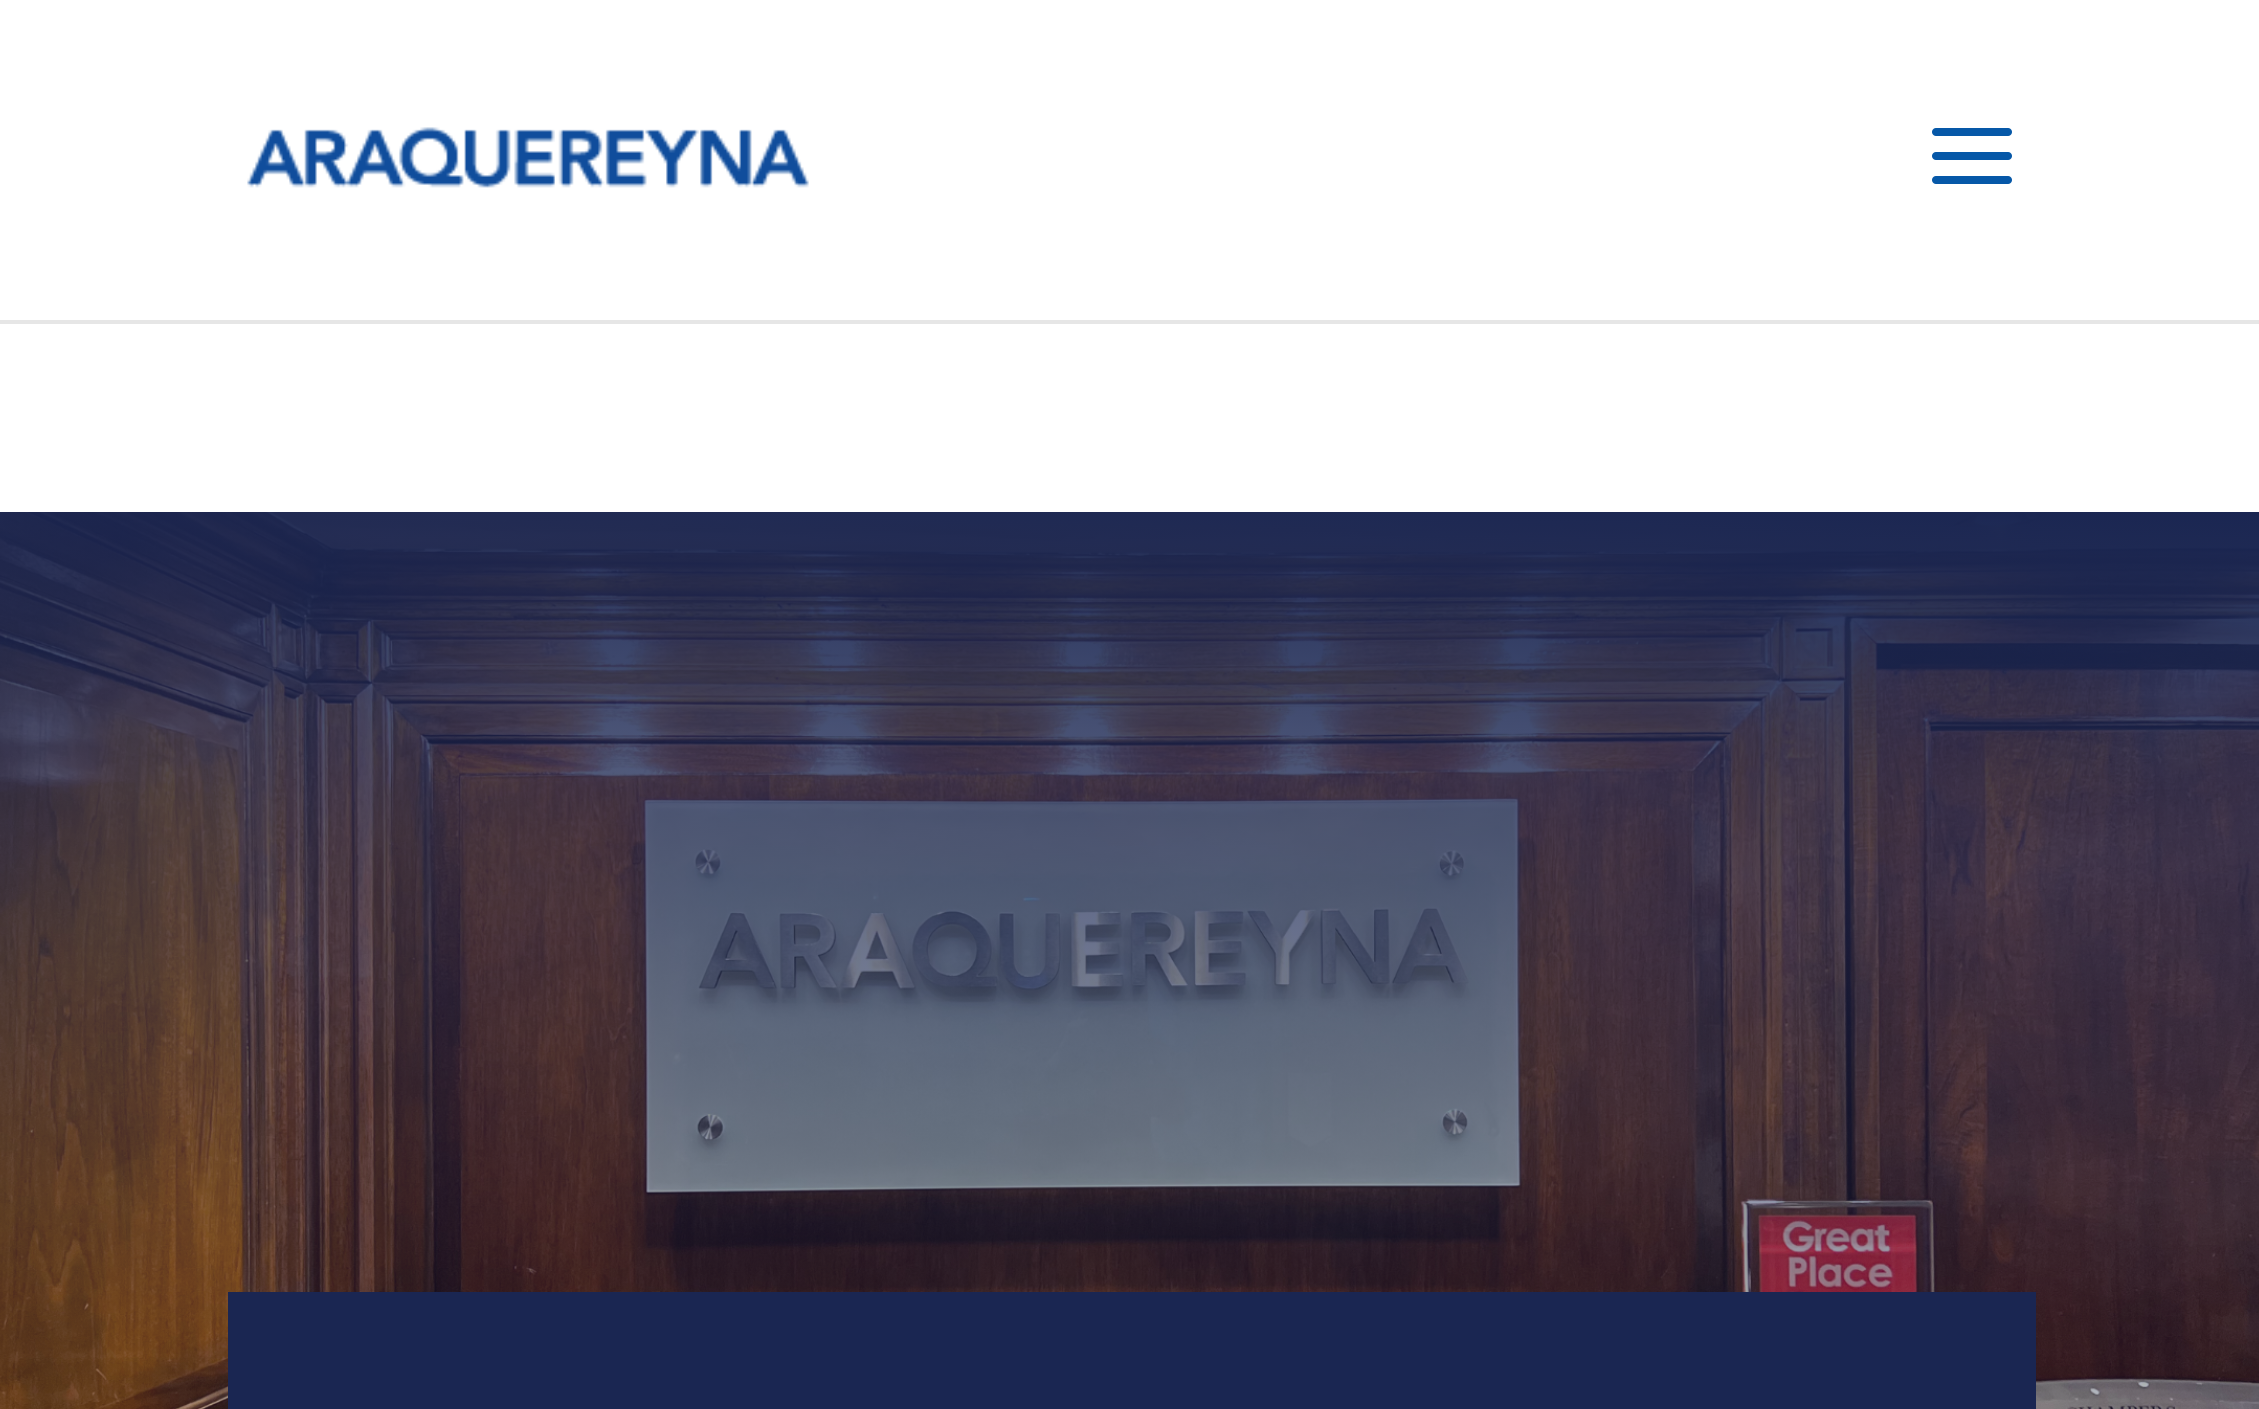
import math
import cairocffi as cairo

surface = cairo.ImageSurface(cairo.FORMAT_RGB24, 2259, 1409)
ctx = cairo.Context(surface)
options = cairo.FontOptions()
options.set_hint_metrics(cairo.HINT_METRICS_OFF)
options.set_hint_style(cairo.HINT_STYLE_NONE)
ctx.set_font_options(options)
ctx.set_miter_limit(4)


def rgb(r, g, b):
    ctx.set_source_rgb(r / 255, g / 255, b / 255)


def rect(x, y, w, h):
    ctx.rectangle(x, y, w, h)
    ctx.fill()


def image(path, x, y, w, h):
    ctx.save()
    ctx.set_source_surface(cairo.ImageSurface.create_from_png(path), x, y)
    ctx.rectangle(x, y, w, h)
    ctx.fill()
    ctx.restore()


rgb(255, 255, 255)
ctx.paint()
rgb(230, 230, 230)
rect(0, 320, 2259, 4)
image('image0.png', 247, 127, 562, 61)
image('image1.png', 1932, 128, 80, 56)
image('image2.png', 0, 512, 2259, 897)
rgb(26, 38, 82)
rect(228, 1292, 1808, 117)
surface.write_to_png('render.png')
